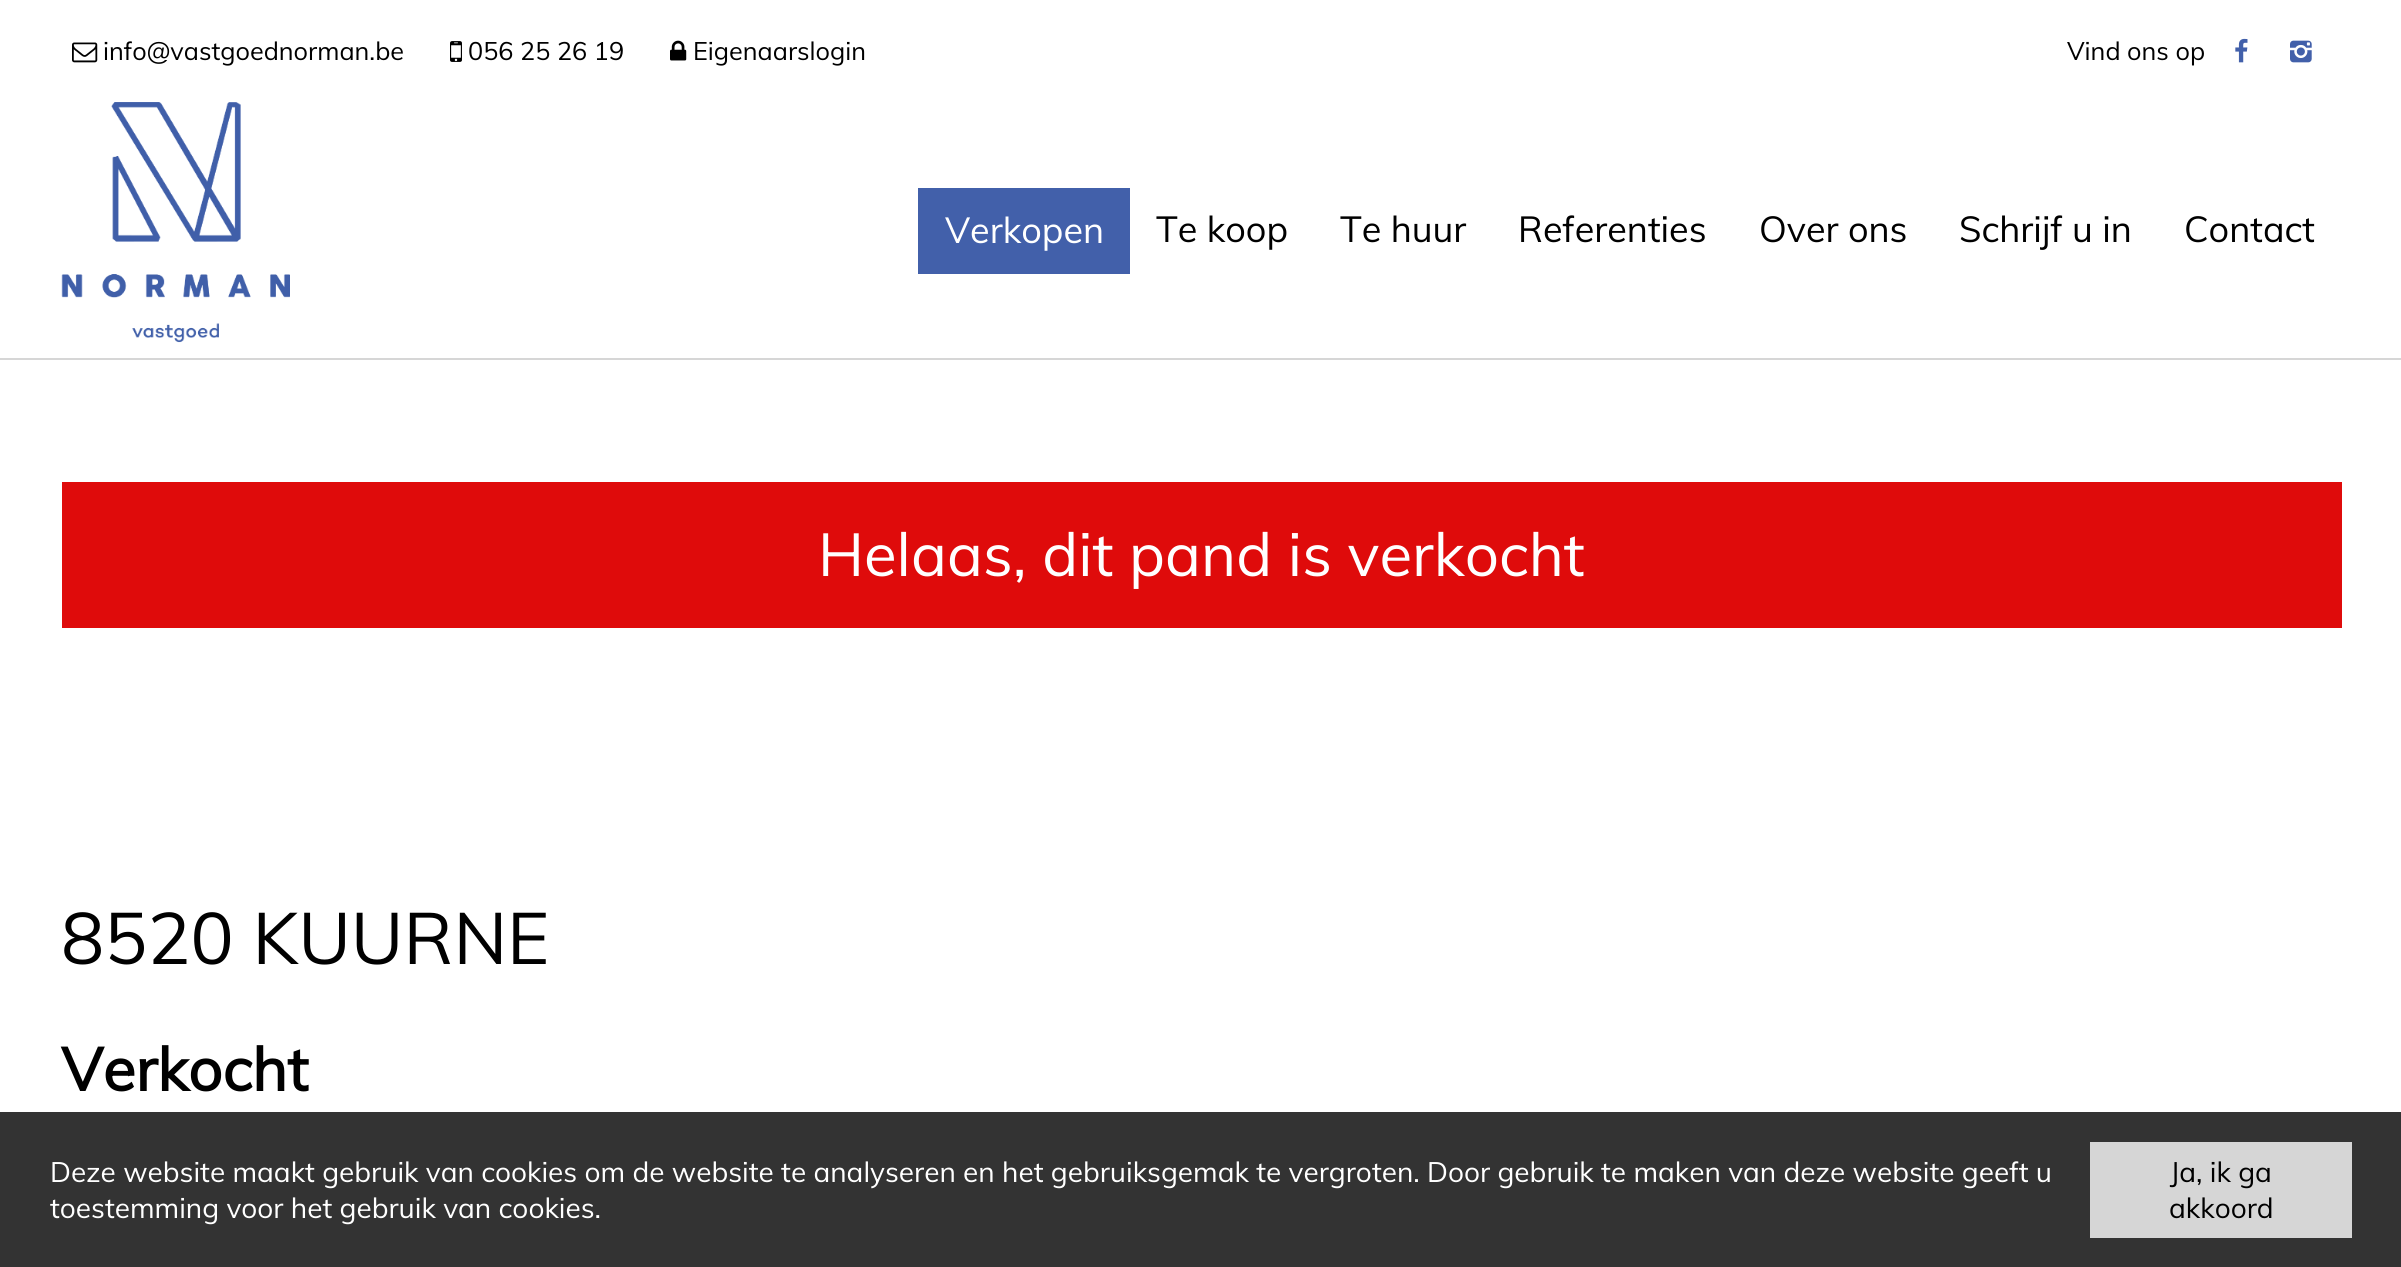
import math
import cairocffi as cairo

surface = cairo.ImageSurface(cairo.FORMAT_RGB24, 2401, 1267)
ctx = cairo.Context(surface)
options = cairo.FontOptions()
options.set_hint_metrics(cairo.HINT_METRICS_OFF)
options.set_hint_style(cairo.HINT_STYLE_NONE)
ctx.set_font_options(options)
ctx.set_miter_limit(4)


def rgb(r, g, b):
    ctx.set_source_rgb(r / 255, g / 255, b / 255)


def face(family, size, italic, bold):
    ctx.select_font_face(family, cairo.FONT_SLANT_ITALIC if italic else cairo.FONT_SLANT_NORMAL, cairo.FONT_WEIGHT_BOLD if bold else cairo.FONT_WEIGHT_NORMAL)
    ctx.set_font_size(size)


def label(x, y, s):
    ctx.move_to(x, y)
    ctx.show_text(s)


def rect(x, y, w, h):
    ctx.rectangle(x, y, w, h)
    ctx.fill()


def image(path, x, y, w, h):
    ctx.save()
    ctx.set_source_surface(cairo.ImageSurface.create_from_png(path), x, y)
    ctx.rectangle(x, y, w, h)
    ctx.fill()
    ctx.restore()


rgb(255, 255, 255)
ctx.paint()
image('image0.png', 72, 42, 26, 21)
face('Muli', 25.25, 0, 0)
rgb(0, 0, 0)
label(103, 60, 'info@vastgoednorman.be')
image('image1.png', 450, 41, 12, 21)
label(468, 60, '056 25 26 19')
image('image2.png', 670, 40, 17, 21)
label(693, 60, 'Eigenaarslogin')
label(2067, 60, 'Vind ons op')
image('image3.png', 2235, 38, 13, 25)
image('image4.png', 2290, 40, 22, 23)
rgb(214, 214, 214)
rect(0, 358, 2401, 2)
image('image5.png', 61, 102, 229, 241)
rgb(66, 96, 170)
rect(918, 188, 212, 86)
face('Muli', 36, 0, 0)
rgb(255, 255, 255)
label(945, 243, 'Verkopen')
rgb(0, 0, 0)
label(1156, 242, 'Te koop')
label(1340, 242, 'Te huur')
label(1518, 242, 'Referenties')
label(1759, 242, 'Over ons')
label(1959, 242, 'Schrijf u in')
label(2184, 242, 'Contact')
rgb(223, 11, 11)
rect(62, 482, 2280, 146)
face('Muli', 60, 0, 0)
rgb(255, 255, 255)
label(818, 576, 'Helaas, dit pand is verkocht')
face('Muli', 72, 0, 0)
rgb(0, 0, 0)
label(61, 964, '8520 KUURNE')
face('Muli', 60, 0, 1)
label(61, 1091, 'Verkocht')
rgb(51, 51, 51)
rect(0, 1112, 2401, 155)
face('Muli', 28, 0, 0)
rgb(255, 255, 255)
label(50, 1182, 'Deze website maakt gebruik van cookies om de website te analyseren en het gebruiksgemak te vergroten. Door gebruik te maken van deze website geeft u')
label(50, 1218, 'toestemming voor het gebruik van cookies.')
rgb(214, 214, 214)
rect(2090, 1142, 262, 96)
rgb(0, 0, 0)
label(2170, 1182, 'Ja, ik ga')
label(2169, 1218, 'akkoord')
surface.write_to_png('render.png')
